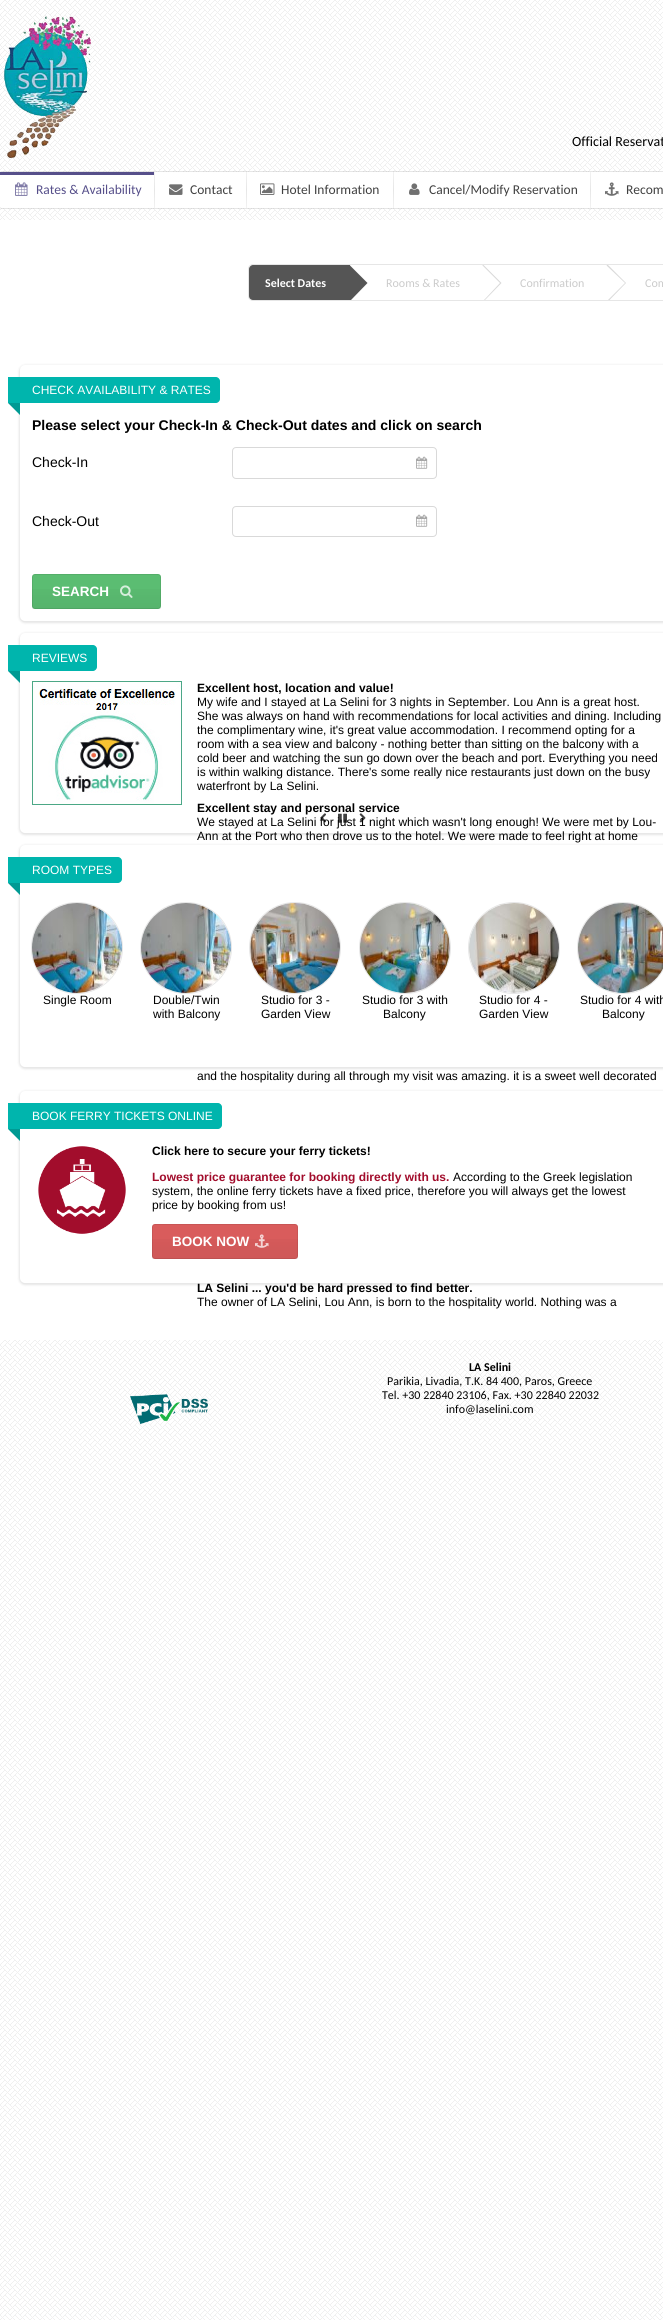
import math
import cairocffi as cairo

surface = cairo.ImageSurface(cairo.FORMAT_RGB24, 663, 2320)
ctx = cairo.Context(surface)
options = cairo.FontOptions()
options.set_hint_metrics(cairo.HINT_METRICS_OFF)
options.set_hint_style(cairo.HINT_STYLE_NONE)
ctx.set_font_options(options)
ctx.set_miter_limit(4)


def rgb(r, g, b):
    ctx.set_source_rgb(r / 255, g / 255, b / 255)


def face(family, size, italic, bold):
    ctx.select_font_face(family, cairo.FONT_SLANT_ITALIC if italic else cairo.FONT_SLANT_NORMAL, cairo.FONT_WEIGHT_BOLD if bold else cairo.FONT_WEIGHT_NORMAL)
    ctx.set_font_size(size)


def label(x, y, s):
    ctx.move_to(x, y)
    ctx.show_text(s)


def rect(x, y, w, h):
    ctx.rectangle(x, y, w, h)
    ctx.fill()


def rrect(x, y, w, h, r):
    ctx.new_sub_path()
    for i, (u, v) in enumerate([(x + w - r, y + h - r), (x + r, y + h - r), (x + r, y + r), (x + w - r, y + r)]):
        ctx.arc(u, v, r, i * math.pi / 2, (i + 1) * math.pi / 2)
    ctx.close_path()


def soft_shadow(x, y, w, h, r, blur, alpha):
    ctx.push_group_with_content(cairo.CONTENT_ALPHA)
    ctx.set_operator(cairo.OPERATOR_SOURCE)
    for i in range(15, -16, -2):
        e = blur * i / 6
        if min(w, h) + 2 * e > 0:
            ctx.set_source_rgba(0, 0, 0, alpha * math.erfc((i - 1) / 8.5) / 2)
            rrect(x - e, y - e, w + 2 * e, h + 2 * e, max(0, min(r + e + blur * .6, min(w, h) / 2 + e)))
            ctx.fill()
    ctx.mask(ctx.pop_group())


def image(path, x, y, w, h):
    ctx.save()
    ctx.set_source_surface(cairo.ImageSurface.create_from_png(path), x, y)
    ctx.rectangle(x, y, w, h)
    ctx.fill()
    ctx.restore()


rgb(255, 255, 255)
ctx.paint()
image('image0.png', 0, 1340, 663, 980)
image('image1.png', 0, 0, 663, 220)
image('image2.png', 3, 16, 88, 142)
face('Carlito', 14, 0, 0)
rgb(0, 0, 0)
label(572, 146, 'Official Reservat')
rrect(-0.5, 171.5, 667, 37, 2.5)
ctx.set_source_rgba(0, 0, 0, 0.1)
ctx.set_line_width(1)
ctx.stroke()
rgb(255, 255, 255)
rrect(0, 172, 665, 36, 2)
ctx.fill()
rgb(86, 79, 138)
rect(0, 172, 154, 3)
image('image3.png', 15, 182, 13, 14)
face('Carlito', 13.5, 0, 0)
label(36, 194, 'Rates & Availability')
gradient = cairo.LinearGradient(155, 172, 155, 208)
gradient.add_color_stop_rgba(0, 0.949, 0.949, 0.949, 1)
gradient.add_color_stop_rgba(0.5, 0.902, 0.902, 0.902, 1)
gradient.add_color_stop_rgba(1, 0.949, 0.949, 0.949, 1)
ctx.set_source(gradient)
rect(154, 172, 1, 36)
image('image4.png', 169, 184, 14, 11)
rgb(64, 64, 64)
label(190, 194, 'Contact')
gradient = cairo.LinearGradient(247, 172, 247, 208)
gradient.add_color_stop_rgba(0, 0.949, 0.949, 0.949, 1)
gradient.add_color_stop_rgba(0.5, 0.902, 0.902, 0.902, 1)
gradient.add_color_stop_rgba(1, 0.949, 0.949, 0.949, 1)
ctx.set_source(gradient)
rect(246, 172, 1, 36)
image('image5.png', 260, 183, 15, 12)
rgb(64, 64, 64)
label(281, 194, 'Hotel Information')
gradient = cairo.LinearGradient(394, 172, 394, 208)
gradient.add_color_stop_rgba(0, 0.949, 0.949, 0.949, 1)
gradient.add_color_stop_rgba(0.5, 0.902, 0.902, 0.902, 1)
gradient.add_color_stop_rgba(1, 0.949, 0.949, 0.949, 1)
ctx.set_source(gradient)
rect(393, 172, 1, 36)
image('image6.png', 409, 183, 11, 12)
rgb(64, 64, 64)
label(429, 194, 'Cancel/Modify Reservation')
gradient = cairo.LinearGradient(591, 172, 591, 208)
gradient.add_color_stop_rgba(0, 0.949, 0.949, 0.949, 1)
gradient.add_color_stop_rgba(0.5, 0.902, 0.902, 0.902, 1)
gradient.add_color_stop_rgba(1, 0.949, 0.949, 0.949, 1)
ctx.set_source(gradient)
rect(590, 172, 1, 36)
image('image7.png', 605, 182, 14, 14)
rgb(64, 64, 64)
label(626, 194, 'Recom')
rrect(248.5, 264.5, 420, 36, 4.5)
rgb(230, 230, 230)
ctx.stroke()
ctx.save()
rrect(249, 265, 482, 35, 4)
ctx.clip()
rgb(85, 85, 85)
ctx.new_path()
ctx.move_to(253, 265)
ctx.line_to(350, 265)
ctx.line_to(350, 301)
ctx.line_to(253, 301)
ctx.curve_to(251, 301, 249, 299, 249, 297)
ctx.line_to(249, 269)
ctx.curve_to(249, 267, 251, 265, 253, 265)
ctx.close_path()
ctx.fill()
ctx.restore()
face('Carlito', 12, 0, 1)
rgb(255, 255, 255)
label(265, 287, 'Select Dates')
rgb(85, 85, 85)
ctx.new_path()
ctx.move_to(330.5, 283)
ctx.line_to(347, 300)
ctx.line_to(351, 300)
ctx.line_to(367.5, 283)
ctx.line_to(349.5, 265)
ctx.line_to(348.5, 265)
ctx.close_path()
ctx.fill()
face('Carlito', 12, 0, 0)
rgb(203, 203, 203)
label(386, 287, 'Rooms & Rates')
rgb(217, 217, 217)
ctx.new_path()
ctx.move_to(483.5, 265)
ctx.line_to(501.5, 283)
ctx.line_to(485, 300)
ctx.line_to(484, 300)
ctx.line_to(500, 283)
ctx.line_to(482.5, 265.5)
ctx.line_to(482.5, 265)
ctx.close_path()
ctx.fill()
rgb(203, 203, 203)
label(520, 287, 'Confirmation')
rgb(217, 217, 217)
ctx.new_path()
ctx.move_to(608, 265)
ctx.line_to(626, 283)
ctx.line_to(609.5, 300)
ctx.line_to(608, 300)
ctx.line_to(625, 283)
ctx.line_to(606.5, 265.5)
ctx.line_to(607, 265)
ctx.close_path()
ctx.fill()
rgb(203, 203, 203)
label(645, 287, 'Com')
rgb(0, 0, 0)
soft_shadow(19, 365, 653, 258, 6, 1, 0.1)
rgb(255, 255, 255)
rrect(20, 365, 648, 256, 5)
ctx.fill()
rgb(0, 181, 173)
ctx.new_path()
ctx.move_to(8, 377)
ctx.line_to(216, 377)
ctx.curve_to(218, 377, 220, 379, 220, 381)
ctx.line_to(220, 399)
ctx.curve_to(220, 401, 218, 403, 216, 403)
ctx.line_to(8, 403)
ctx.close_path()
ctx.fill()
face('Liberation Sans', 12, 0, 0)
rgb(255, 255, 255)
label(32, 394, 'CHECK AVAILABILITY & RATES')
rgb(0, 154, 147)
ctx.new_path()
ctx.move_to(20, 403)
ctx.line_to(20, 415)
ctx.line_to(8, 403)
ctx.close_path()
ctx.fill()
face('Liberation Sans', 14.05, 0, 1)
rgb(0, 0, 0)
label(32, 430, 'Please select your Check-In & Check-Out dates and click on search')
face('Liberation Sans', 14, 0, 0)
label(32, 467, 'Check-In')
rrect(232.5, 447.5, 204, 31, 3.5)
rgb(217, 217, 217)
ctx.stroke()
image('image8.png', 416, 456, 12, 13)
rgb(0, 0, 0)
label(32, 526, 'Check-Out')
rrect(232.5, 506.5, 204, 30, 3.5)
rgb(217, 217, 217)
ctx.stroke()
image('image8.png', 416, 514, 12, 13)
rgb(91, 189, 114)
rrect(32, 574, 129, 35, 3)
ctx.fill()
gradient = cairo.LinearGradient(97, 574, 97, 609)
gradient.add_color_stop_rgba(0, 0, 0, 0, 0)
gradient.add_color_stop_rgba(1, 0, 0, 0, 0.05)
ctx.set_source(gradient)
rect(32, 589, 129, 20)
rrect(32.5, 574.5, 128, 34, 2.5)
ctx.set_source_rgba(0, 0, 0, 0.08)
ctx.stroke()
face('Liberation Sans', 13.5, 0, 1)
rgb(255, 255, 255)
label(52, 596, 'SEARCH')
image('image9.png', 120, 585, 13, 13)
rgb(0, 0, 0)
soft_shadow(19, 633, 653, 202, 6, 1, 0.1)
rgb(255, 255, 255)
rrect(20, 633, 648, 200, 5)
ctx.fill()
rgb(0, 181, 173)
ctx.new_path()
ctx.move_to(8, 645)
ctx.line_to(93, 645)
ctx.curve_to(95, 645, 97, 647, 97, 649)
ctx.line_to(97, 667)
ctx.curve_to(97, 669, 95, 671, 93, 671)
ctx.line_to(8, 671)
ctx.close_path()
ctx.fill()
face('Liberation Sans', 12, 0, 0)
rgb(255, 255, 255)
label(32, 662, 'REVIEWS')
rgb(0, 154, 147)
ctx.new_path()
ctx.move_to(20, 671)
ctx.line_to(20, 683)
ctx.line_to(8, 671)
ctx.close_path()
ctx.fill()
image('image10.png', 32, 681, 150, 124)
face('Liberation Sans', 12, 0, 1)
rgb(0, 0, 0)
label(197, 692, 'Excellent host, location and value!')
face('Liberation Sans', 12, 0, 0)
label(197, 706, 'My wife and I stayed at La Selini for 3 nights in September. Lou Ann is a great host.')
label(197, 720, 'She was always on hand with recommendations for local activities and dining. Including')
label(197, 734, 'the complimentary wine, it\'s great value accommodation. I recommend opting for a')
label(197, 748, 'room with a sea view and balcony - nothing better than sitting on the balcony with a')
label(197, 762, 'cold beer and watching the sun go down over the beach and port. Everything you need')
label(197, 776, 'is within walking distance. There\'s some really nice restaurants just down on the busy')
label(197, 790, 'waterfront by La Selini.')
face('Liberation Sans', 12, 0, 1)
label(197, 812, 'Excellent stay and personal service')
face('Liberation Sans', 12, 0, 0)
label(197, 826, 'We stayed at La Selini for just 1 night which wasn\'t long enough! We were met by Lou-')
label(197, 840, 'Ann at the Port who then drove us to the hotel. We were made to feel right at home')
label(197, 1080, 'and the hospitality during all through my visit was amazing. it is a sweet well decorated')
face('Liberation Sans', 12, 0, 1)
label(197, 1292, 'LA Selini ... you\'d be hard pressed to find better.')
face('Liberation Sans', 12, 0, 0)
label(197, 1306, 'The owner of LA Selini, Lou Ann, is born to the hospitality world. Nothing was a')
image('image11.png', 320, 813, 6, 10)
image('image12.png', 338, 813, 9, 10)
image('image13.png', 359, 813, 7, 10)
rgb(0, 0, 0)
soft_shadow(19, 845, 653, 224, 6, 1, 0.1)
rgb(255, 255, 255)
rrect(20, 845, 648, 222, 5)
ctx.fill()
rgb(0, 181, 173)
ctx.new_path()
ctx.move_to(8, 857)
ctx.line_to(118, 857)
ctx.curve_to(120, 857, 122, 859, 122, 861)
ctx.line_to(122, 879)
ctx.curve_to(122, 881, 120, 883, 118, 883)
ctx.line_to(8, 883)
ctx.close_path()
ctx.fill()
rgb(255, 255, 255)
label(32, 874, 'ROOM TYPES')
rgb(0, 154, 147)
ctx.new_path()
ctx.move_to(20, 883)
ctx.line_to(20, 895)
ctx.line_to(8, 883)
ctx.close_path()
ctx.fill()
ctx.arc(77, 948, 45.5, 0, 2 * math.pi)
rgb(230, 230, 230)
ctx.stroke()
rgb(255, 255, 255)
ctx.arc(77, 948, 45, 0, 2 * math.pi)
ctx.fill()
image('image14.png', 32, 903, 90, 90)
rgb(0, 0, 0)
label(43, 1004, 'Single Room')
ctx.new_path()
ctx.arc(186, 948, 45.5, 0, 2 * math.pi)
rgb(230, 230, 230)
ctx.stroke()
rgb(255, 255, 255)
ctx.arc(186, 948, 45, 0, 2 * math.pi)
ctx.fill()
image('image15.png', 141, 903, 90, 90)
rgb(0, 0, 0)
label(153, 1004, 'Double/Twin')
label(153, 1018, 'with Balcony')
ctx.new_path()
ctx.arc(295, 948, 45.5, 0, 2 * math.pi)
rgb(230, 230, 230)
ctx.stroke()
rgb(255, 255, 255)
ctx.arc(295, 948, 45, 0, 2 * math.pi)
ctx.fill()
image('image16.png', 250, 903, 90, 90)
rgb(0, 0, 0)
label(261, 1004, 'Studio for 3 -')
label(261, 1018, 'Garden View')
ctx.new_path()
ctx.arc(405, 948, 45.5, 0, 2 * math.pi)
rgb(230, 230, 230)
ctx.stroke()
rgb(255, 255, 255)
ctx.arc(405, 948, 45, 0, 2 * math.pi)
ctx.fill()
image('image17.png', 360, 903, 90, 90)
rgb(0, 0, 0)
label(362, 1004, 'Studio for 3 with')
label(383, 1018, 'Balcony')
ctx.new_path()
ctx.arc(514, 948, 45.5, 0, 2 * math.pi)
rgb(230, 230, 230)
ctx.stroke()
rgb(255, 255, 255)
ctx.arc(514, 948, 45, 0, 2 * math.pi)
ctx.fill()
image('image18.png', 469, 903, 90, 90)
rgb(0, 0, 0)
label(479, 1004, 'Studio for 4 -')
label(479, 1018, 'Garden View')
ctx.new_path()
ctx.arc(623, 948, 45.5, 0, 2 * math.pi)
rgb(230, 230, 230)
ctx.stroke()
rgb(255, 255, 255)
ctx.arc(623, 948, 45, 0, 2 * math.pi)
ctx.fill()
image('image19.png', 578, 903, 85, 90)
rgb(0, 0, 0)
label(580, 1004, 'Studio for 4 with')
label(602, 1018, 'Balcony')
rgb(0, 0, 0)
soft_shadow(19, 1091, 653, 194, 6, 1, 0.1)
rgb(255, 255, 255)
rrect(20, 1091, 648, 192, 5)
ctx.fill()
rgb(0, 181, 173)
ctx.new_path()
ctx.move_to(8, 1103)
ctx.line_to(218, 1103)
ctx.curve_to(220, 1103, 222, 1105, 222, 1107)
ctx.line_to(222, 1125)
ctx.curve_to(222, 1127, 220, 1129, 218, 1129)
ctx.line_to(8, 1129)
ctx.close_path()
ctx.fill()
rgb(255, 255, 255)
label(32, 1120, 'BOOK FERRY TICKETS ONLINE')
rgb(0, 154, 147)
ctx.new_path()
ctx.move_to(20, 1129)
ctx.line_to(20, 1141)
ctx.line_to(8, 1129)
ctx.close_path()
ctx.fill()
image('image20.png', 38, 1146, 88, 88)
face('Liberation Sans', 12, 0, 1)
rgb(0, 0, 0)
label(152, 1155, 'Click here to secure your ferry tickets!')
rgb(162, 13, 44)
label(152, 1181, 'Lowest price guarantee for booking directly with us.')
face('Liberation Sans', 12, 0, 0)
rgb(0, 0, 0)
label(453, 1181, 'According to the Greek legislation')
label(152, 1195, 'system, the online ferry tickets have a fixed price, therefore you will always get the lowest')
label(152, 1209, 'price by booking from us!')
rgb(217, 92, 92)
rrect(152, 1224, 146, 35, 3)
ctx.fill()
gradient = cairo.LinearGradient(225, 1224, 225, 1259)
gradient.add_color_stop_rgba(0, 0, 0, 0, 0)
gradient.add_color_stop_rgba(1, 0, 0, 0, 0.05)
ctx.set_source(gradient)
rect(152, 1239, 146, 20)
rrect(152.5, 1224.5, 145, 34, 2.5)
ctx.set_source_rgba(0, 0, 0, 0.08)
ctx.stroke()
face('Liberation Sans', 13.5, 0, 1)
rgb(255, 255, 255)
label(172, 1246, 'BOOK NOW')
image('image21.png', 255, 1234, 14, 14)
image('image22.png', 130, 1394, 78, 30)
face('Carlito', 12, 0, 1)
rgb(0, 0, 0)
label(469, 1371, 'LA Selini')
face('Carlito', 12, 0, 0)
label(387, 1385, 'Parikia, Livadia, T.K. 84 400, Paros, Greece')
label(382, 1399, 'Tel. +30 22840 23106, Fax. +30 22840 22032')
label(446, 1413, 'info@laselini.com')
surface.write_to_png('render.png')
